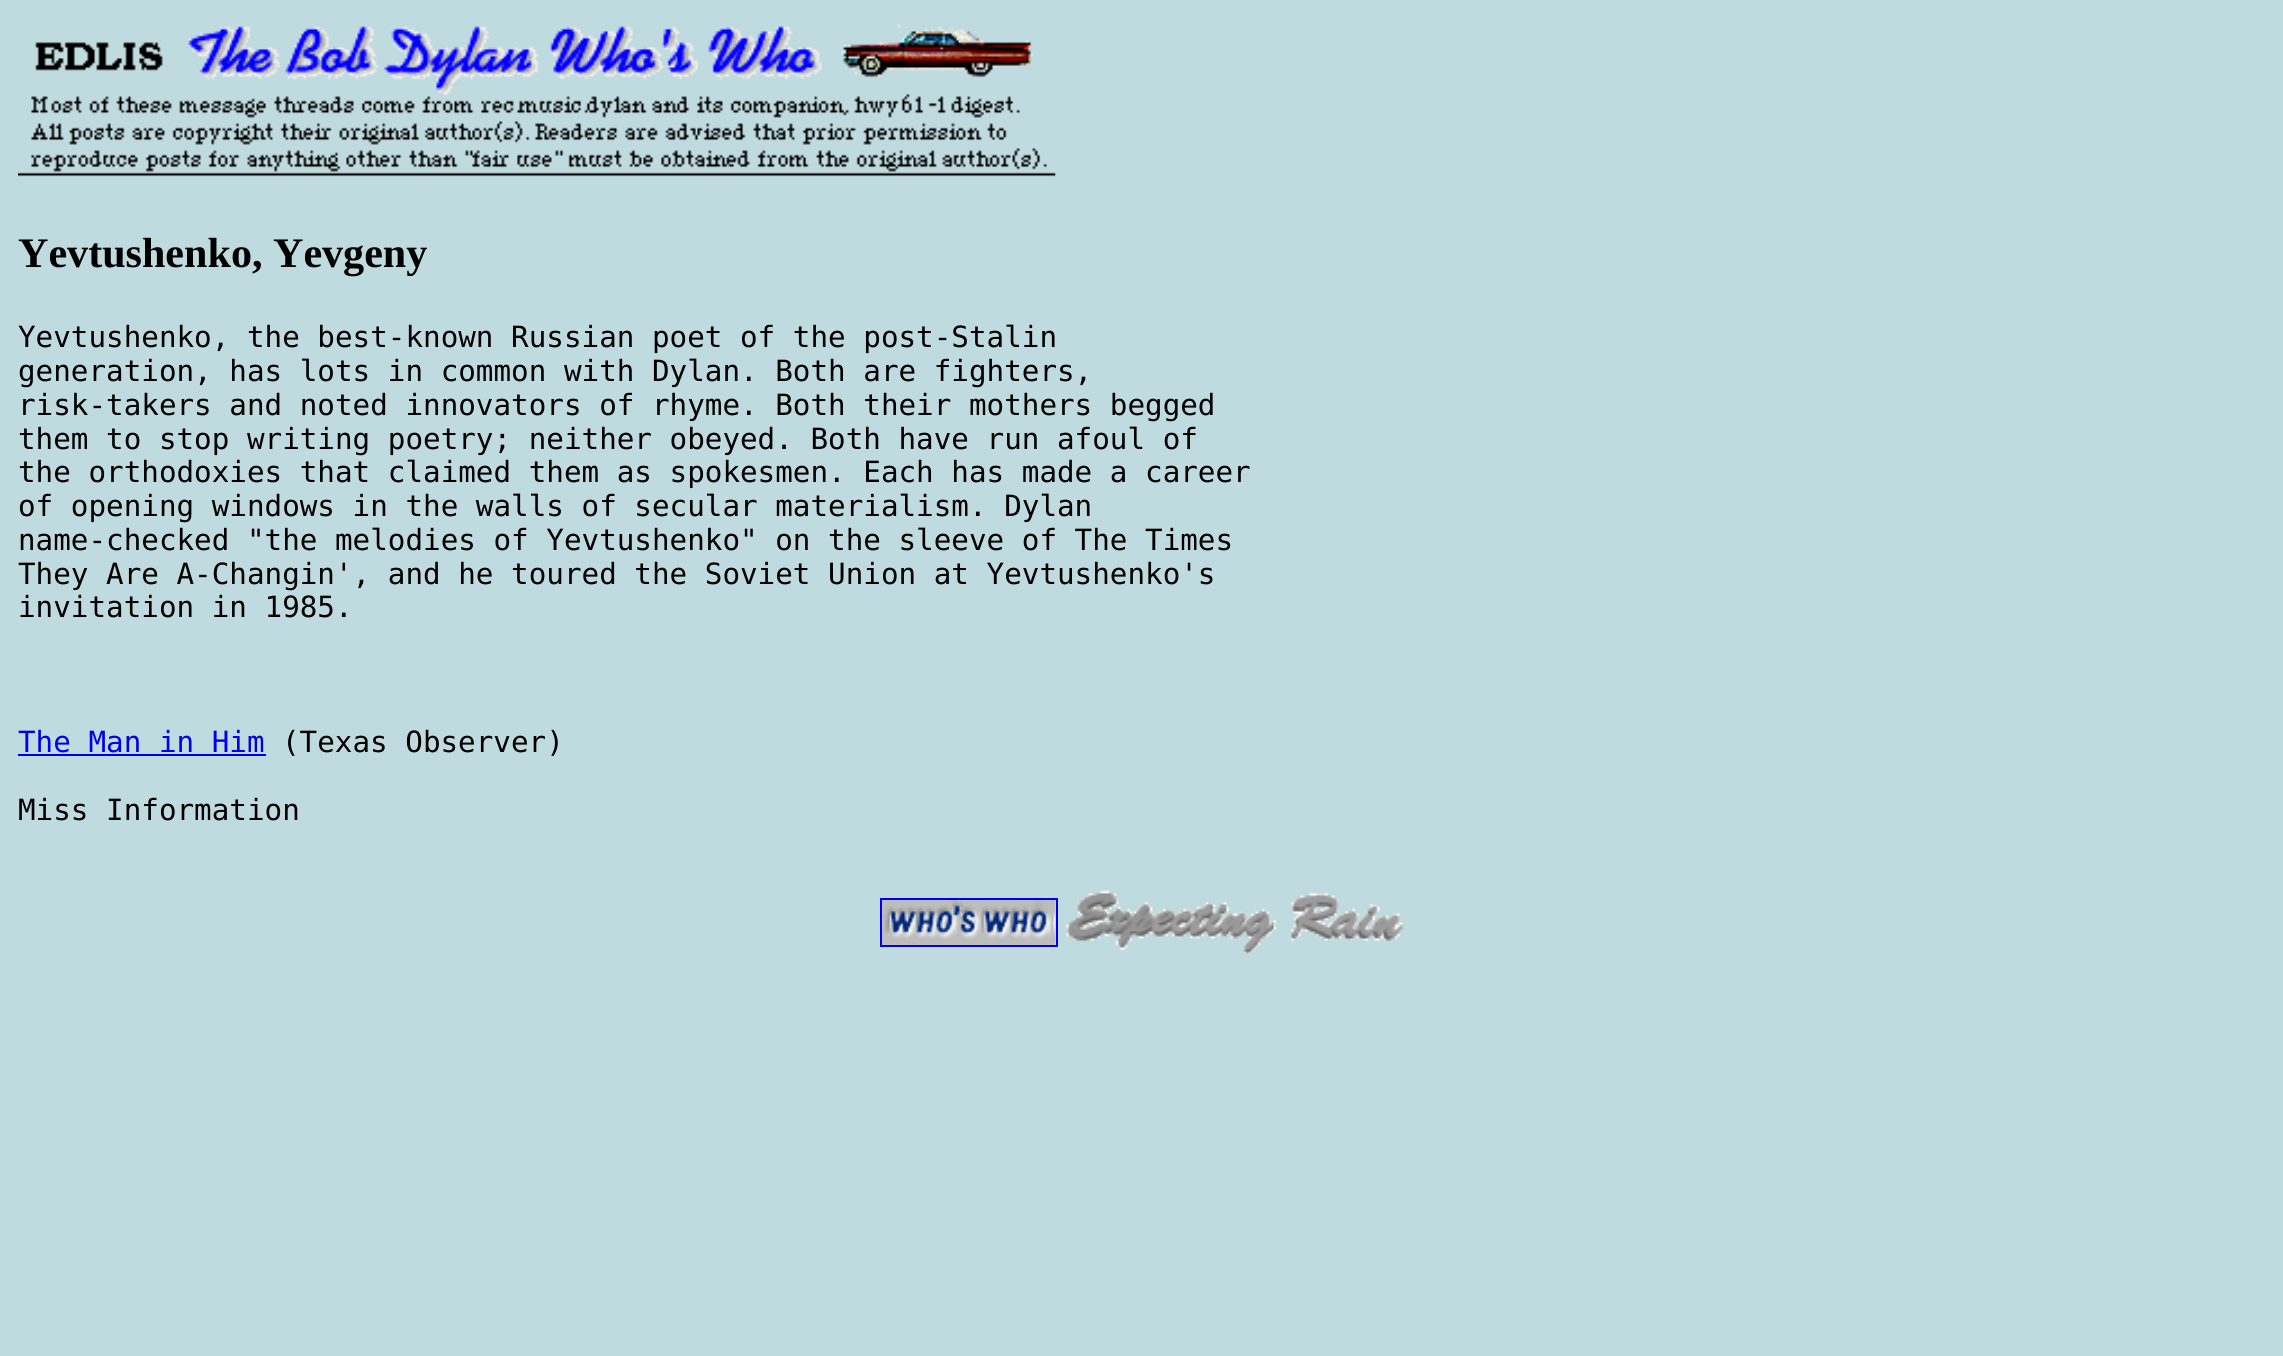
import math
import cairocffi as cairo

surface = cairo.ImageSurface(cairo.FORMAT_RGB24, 2283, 1356)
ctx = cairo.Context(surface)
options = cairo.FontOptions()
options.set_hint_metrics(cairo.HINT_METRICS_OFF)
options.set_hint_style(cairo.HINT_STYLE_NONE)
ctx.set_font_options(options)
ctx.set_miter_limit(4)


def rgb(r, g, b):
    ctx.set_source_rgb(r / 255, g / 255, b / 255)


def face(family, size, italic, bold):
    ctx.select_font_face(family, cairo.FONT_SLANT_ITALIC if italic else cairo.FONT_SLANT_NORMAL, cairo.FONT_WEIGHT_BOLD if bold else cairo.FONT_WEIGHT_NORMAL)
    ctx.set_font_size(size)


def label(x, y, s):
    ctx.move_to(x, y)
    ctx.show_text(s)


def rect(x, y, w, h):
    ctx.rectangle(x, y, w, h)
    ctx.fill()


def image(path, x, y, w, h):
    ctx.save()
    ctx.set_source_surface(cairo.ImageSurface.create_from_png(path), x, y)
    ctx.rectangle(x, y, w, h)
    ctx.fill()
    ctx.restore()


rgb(191, 219, 223)
ctx.paint()
image('image0.png', 18, 24, 1038, 153)
face('Liberation Serif', 42.1, 0, 1)
rgb(0, 0, 0)
label(18, 267, 'Yevtushenko, Yevgeny')
face('DejaVu Sans Mono', 29.25, 0, 0)
label(18, 347, 'Yevtushenko, the best-known Russian poet of the post-Stalin')
label(18, 381, 'generation, has lots in common with Dylan. Both are fighters,')
label(18, 415, 'risk-takers and noted innovators of rhyme. Both their mothers begged')
label(18, 449, 'them to stop writing poetry; neither obeyed. Both have run afoul of')
label(18, 482, 'the orthodoxies that claimed them as spokesmen. Each has made a career')
label(18, 516, 'of opening windows in the walls of secular materialism. Dylan')
label(18, 550, 'name-checked "the melodies of Yevtushenko" on the sleeve of The Times')
label(18, 584, 'They Are A-Changin\', and he toured the Soviet Union at Yevtushenko\'s')
label(18, 617, 'invitation in 1985.')
rgb(0, 0, 238)
label(18, 752, 'The Man in Him')
rect(18, 754, 248, 2)
rgb(0, 0, 0)
label(282, 752, '(Texas Observer)')
label(18, 820, 'Miss Information')
ctx.rectangle(881, 899, 176, 47)
rgb(0, 0, 238)
ctx.stroke()
image('image1.png', 1066, 890, 338, 65)
image('image2.png', 882, 900, 174, 45)
surface.write_to_png('render.png')
